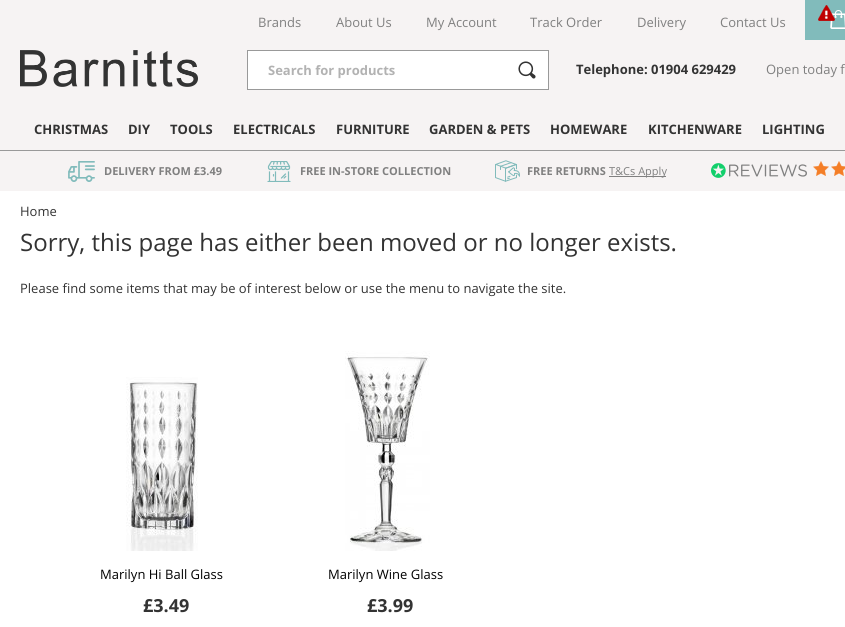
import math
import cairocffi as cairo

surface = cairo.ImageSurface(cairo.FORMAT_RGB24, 845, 627)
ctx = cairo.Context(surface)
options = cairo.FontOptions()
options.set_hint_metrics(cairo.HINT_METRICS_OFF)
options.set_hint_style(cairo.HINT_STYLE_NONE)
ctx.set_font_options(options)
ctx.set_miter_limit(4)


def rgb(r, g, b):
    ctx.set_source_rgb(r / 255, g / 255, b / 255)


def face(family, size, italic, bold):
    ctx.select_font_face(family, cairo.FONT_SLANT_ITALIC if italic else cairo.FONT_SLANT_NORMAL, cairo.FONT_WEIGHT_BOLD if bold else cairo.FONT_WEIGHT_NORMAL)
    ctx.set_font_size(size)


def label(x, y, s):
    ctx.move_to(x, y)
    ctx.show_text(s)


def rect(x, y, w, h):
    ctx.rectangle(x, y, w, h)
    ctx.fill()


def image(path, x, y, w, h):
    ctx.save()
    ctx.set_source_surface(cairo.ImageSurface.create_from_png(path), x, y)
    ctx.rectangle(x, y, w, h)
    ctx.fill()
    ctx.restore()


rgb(255, 255, 255)
ctx.paint()
rgb(246, 243, 243)
rect(0, 0, 845, 150)
face('Open Sans', 13, 0, 0)
rgb(128, 128, 128)
label(258, 27, 'Brands')
label(336, 27, 'About Us')
label(426, 27, 'My Account')
label(530, 27, 'Track Order')
label(637, 27, 'Delivery')
label(720, 27, 'Contact Us')
rgb(129, 187, 187)
rect(805, 0, 40, 40)
image('image0.png', 830, 10, 15, 19)
image('image1.png', 818, 5, 17, 16)
image('image2.png', 20, 50, 178, 37)
rgb(255, 255, 255)
ctx.rectangle(247.5, 50.5, 301, 39)
ctx.fill_preserve()
rgb(153, 153, 153)
ctx.set_line_width(1)
ctx.stroke()
face('Open Sans', 13, 0, 1)
rgb(178, 178, 178)
label(268, 75, 'Search for products')
image('image3.png', 518, 61, 18, 18)
rgb(51, 51, 51)
label(576, 74, 'Telephone: 01904 629429')
face('Open Sans', 13, 0, 0)
rgb(128, 128, 128)
label(766, 74, 'Open today f')
rgb(153, 153, 153)
rect(0, 150, 845, 1)
face('Open Sans', 13, 0, 1)
rgb(51, 51, 51)
label(34, 134, 'CHRISTMAS')
label(128, 134, 'DIY')
label(170, 134, 'TOOLS')
label(233, 134, 'ELECTRICALS')
label(336, 134, 'FURNITURE')
label(429, 134, 'GARDEN & PETS')
label(550, 134, 'HOMEWARE')
label(648, 134, 'KITCHENWARE')
label(762, 134, 'LIGHTING')
rgb(246, 243, 243)
rect(0, 151, 845, 40)
image('image4.png', 68, 161, 27, 21)
face('Open Sans', 11, 0, 1)
rgb(128, 128, 128)
label(104, 175, 'DELIVERY FROM £3.49')
image('image5.png', 267, 161, 24, 21)
label(300, 175, 'FREE IN-STORE COLLECTION')
image('image6.png', 495, 160, 25, 22)
label(527, 175, 'FREE RETURNS')
rect(609, 176, 57, 1)
face('Open Sans', 11, 0, 0)
label(609, 175, 'T&Cs Apply')
image('image7.png', 711, 163, 96, 15)
image('image8.png', 813, 161, 16, 15)
image('image9.png', 831, 161, 14, 15)
face('Open Sans', 13, 0, 0)
rgb(51, 51, 51)
label(20, 216, 'Home')
face('Open Sans', 24, 0, 0)
label(20, 251, 'Sorry, this page has either been moved or no longer exists.')
face('Open Sans', 13, 0, 0)
label(20, 293, 'Please find some items that may be of interest below or use the menu to navigate the site.')
image('image10.png', 126, 377, 72, 174)
rgb(0, 0, 0)
label(100, 579, 'Marilyn Hi Ball Glass')
face('Open Sans', 18, 0, 1)
rgb(51, 51, 51)
label(143, 612, '£3.49')
image('image11.png', 345, 351, 85, 200)
face('Open Sans', 13, 0, 0)
rgb(0, 0, 0)
label(328, 579, 'Marilyn Wine Glass')
face('Open Sans', 18, 0, 1)
rgb(51, 51, 51)
label(367, 612, '£3.99')
surface.write_to_png('render.png')
